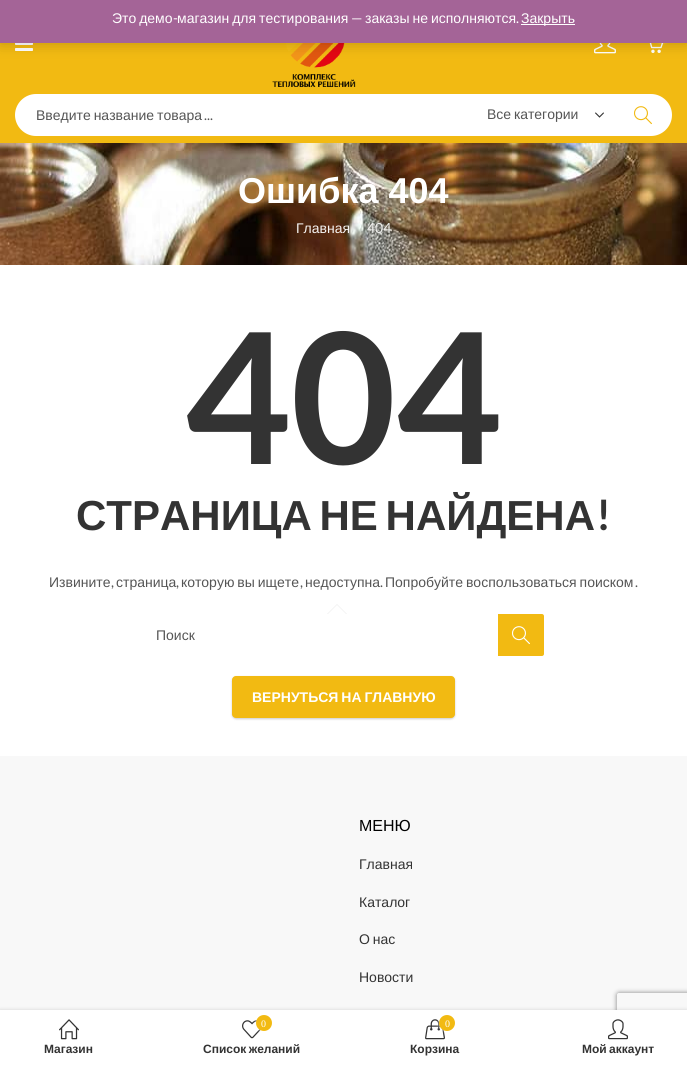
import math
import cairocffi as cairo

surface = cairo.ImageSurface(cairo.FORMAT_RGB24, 687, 1067)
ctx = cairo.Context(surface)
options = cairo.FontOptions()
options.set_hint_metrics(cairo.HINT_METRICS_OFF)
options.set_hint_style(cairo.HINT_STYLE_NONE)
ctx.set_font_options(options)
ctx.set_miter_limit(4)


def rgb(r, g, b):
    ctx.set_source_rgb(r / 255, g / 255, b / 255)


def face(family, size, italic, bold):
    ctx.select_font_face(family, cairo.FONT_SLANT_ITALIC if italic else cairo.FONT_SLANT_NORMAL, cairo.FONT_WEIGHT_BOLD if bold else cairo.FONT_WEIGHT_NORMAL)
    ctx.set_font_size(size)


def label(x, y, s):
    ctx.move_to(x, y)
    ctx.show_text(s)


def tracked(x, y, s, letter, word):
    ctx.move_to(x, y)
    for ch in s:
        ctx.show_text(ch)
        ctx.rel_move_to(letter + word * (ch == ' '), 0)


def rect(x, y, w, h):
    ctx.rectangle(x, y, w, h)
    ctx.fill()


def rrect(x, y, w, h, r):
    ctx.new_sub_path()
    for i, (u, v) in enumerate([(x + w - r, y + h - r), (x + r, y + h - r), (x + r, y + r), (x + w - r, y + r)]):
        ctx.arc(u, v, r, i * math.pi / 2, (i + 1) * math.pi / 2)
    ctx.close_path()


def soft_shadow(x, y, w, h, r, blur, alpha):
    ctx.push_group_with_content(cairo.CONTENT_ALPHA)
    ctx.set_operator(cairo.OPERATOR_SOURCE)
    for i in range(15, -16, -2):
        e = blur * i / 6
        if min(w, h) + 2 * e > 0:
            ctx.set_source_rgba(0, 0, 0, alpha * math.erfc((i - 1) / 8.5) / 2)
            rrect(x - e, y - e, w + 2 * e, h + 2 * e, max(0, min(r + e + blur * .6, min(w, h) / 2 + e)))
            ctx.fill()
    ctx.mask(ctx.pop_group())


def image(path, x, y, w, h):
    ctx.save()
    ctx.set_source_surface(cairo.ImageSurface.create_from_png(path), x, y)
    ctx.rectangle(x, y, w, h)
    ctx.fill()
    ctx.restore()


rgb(255, 255, 255)
ctx.paint()
rgb(242, 186, 18)
rect(0, 43, 687, 100)
image('image0.png', 15, 43, 18, 8)
image('image1.png', 272, 43, 84, 44)
image('image2.png', 594, 43, 22, 11)
image('image3.png', 649, 43, 15, 10)
rgb(0, 0, 0)
soft_shadow(0, -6, 687, 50, 0, 7, 0.2)
rgb(255, 255, 255)
soft_shadow(654, 26, 16, 16, 8, 1.5, 0.7)
rgb(164, 100, 151)
rect(0, 0, 687, 43)
face('Liberation Sans', 14, 0, 0)
rgb(255, 255, 255)
tracked(112, 23, 'Это демо', 0, -1)
face('Lato', 14, 0, 0)
label(173, 23, '-')
face('Liberation Sans', 14, 0, 0)
tracked(177, 23, 'магазин для тестирования', 0, -1)
face('Lato', 14, 0, 0)
label(351, 23, '—')
face('Liberation Sans', 14, 0, 0)
tracked(365, 23, 'заказы не исполняются', 0, -1)
rect(521, 24, 54, 1)
label(521, 23, 'Закрыть')
face('Lato', 14, 0, 0)
label(516, 23, '.')
ctx.new_path()
ctx.move_to(36, 94)
ctx.line_to(472, 94)
ctx.line_to(472, 136)
ctx.line_to(36, 136)
ctx.curve_to(24.5, 136, 15, 126.5, 15, 115)
ctx.curve_to(15, 103.5, 24.5, 94, 36, 94)
ctx.close_path()
ctx.fill()
face('Liberation Sans', 14, 0, 0)
rgb(85, 85, 85)
tracked(36, 120, 'Введите название товара', 0, -1)
face('Lato', 14, 0, 0)
label(204, 120, '...')
rgb(255, 255, 255)
rect(472, 94, 142, 42)
image('image4.png', 595, 112, 9, 6)
face('Liberation Sans', 14, 0, 0)
rgb(85, 85, 85)
tracked(487, 119, 'Все категории', 0, -1)
rgb(255, 255, 255)
ctx.new_path()
ctx.move_to(614, 94)
ctx.line_to(651, 94)
ctx.curve_to(662.5, 94, 672, 103.5, 672, 115)
ctx.curve_to(672, 126.5, 662.5, 136, 651, 136)
ctx.line_to(614, 136)
ctx.close_path()
ctx.fill()
image('image5.png', 634, 106, 18, 19)
image('image6.png', 0, 143, 687, 122)
face('Liberation Sans', 36, 0, 1)
label(238, 203, 'Ошибка 404')
face('Liberation Sans', 14, 0, 0)
rgb(246, 244, 243)
label(296, 233, 'Главная')
face('Lato', 14, 0, 0)
rgb(237, 237, 235)
label(367, 233, '404')
face('Lato', 182, 0, 1)
rgb(51, 51, 51)
label(185, 464, '404')
face('Liberation Sans', 42, 0, 1)
tracked(76, 530, 'СТРАНИЦА НЕ НАЙДЕНА', 0, -4)
face('Lato', 42, 0, 1)
label(596, 530, '!')
face('Liberation Sans', 14, 0, 0)
rgb(85, 85, 85)
label(49, 587, 'Извините')
face('Lato', 14, 0, 0)
label(111, 587, ',')
face('Liberation Sans', 14, 0, 0)
label(116, 587, 'страница')
face('Lato', 14, 0, 0)
label(176, 587, ',')
face('Liberation Sans', 14, 0, 0)
tracked(181, 587, 'которую вы ищете', 0, -1)
face('Lato', 14, 0, 0)
label(300, 587, ',')
face('Liberation Sans', 14, 0, 0)
label(305, 587, 'недоступна')
face('Lato', 14, 0, 0)
label(380, 587, '.')
face('Liberation Sans', 14, 0, 0)
tracked(385, 587, 'Попробуйте воспользоваться поиском', 0, -1)
face('Lato', 14, 0, 0)
label(635, 587, '.')
rgb(240, 240, 240)
ctx.new_path()
ctx.move_to(347, 614)
ctx.line_to(327, 614)
ctx.line_to(337, 604)
ctx.close_path()
ctx.fill()
rgb(255, 255, 255)
ctx.new_path()
ctx.move_to(346, 614)
ctx.line_to(328, 614)
ctx.line_to(337, 605)
ctx.close_path()
ctx.fill()
face('Liberation Sans', 14, 0, 0)
rgb(85, 85, 85)
label(156, 640, 'Поиск')
rgb(242, 186, 18)
ctx.new_path()
ctx.move_to(498, 614)
ctx.line_to(542, 614)
ctx.curve_to(543, 614, 544, 615, 544, 616)
ctx.line_to(544, 654)
ctx.curve_to(544, 655, 543, 656, 542, 656)
ctx.line_to(498, 656)
ctx.close_path()
ctx.fill()
image('image7.png', 512, 626, 18, 19)
rgb(0, 0, 0)
soft_shadow(232, 677, 223, 42, 4, 1, 0.2)
rgb(242, 186, 18)
rrect(232, 676, 223, 42, 4)
ctx.fill()
face('Liberation Sans', 14, 0, 1)
rgb(255, 255, 255)
tracked(252, 702, 'ВЕРНУТЬСЯ НА ГЛАВНУЮ', 0, -1)
rgb(248, 248, 248)
rect(0, 756, 687, 254)
face('Liberation Sans', 16, 0, 0)
rgb(0, 0, 0)
label(359, 831, 'МЕНЮ')
face('Liberation Sans', 14, 0, 0)
rgb(51, 51, 51)
label(359, 869, 'Главная')
label(359, 907, 'Каталог')
tracked(359, 944, 'О нас', 0, -1)
label(359, 982, 'Новости')
ctx.save()
ctx.set_fill_rule(cairo.FILL_RULE_EVEN_ODD)
ctx.new_path()
ctx.move_to(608, 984)
ctx.line_to(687, 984)
ctx.line_to(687, 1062)
ctx.line_to(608, 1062)
ctx.close_path()
ctx.move_to(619, 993)
ctx.line_to(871, 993)
ctx.curve_to(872, 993, 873, 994, 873, 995)
ctx.line_to(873, 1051)
ctx.curve_to(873, 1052, 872, 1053, 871, 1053)
ctx.line_to(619, 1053)
ctx.curve_to(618, 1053, 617, 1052, 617, 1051)
ctx.line_to(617, 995)
ctx.curve_to(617, 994, 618, 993, 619, 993)
ctx.close_path()
ctx.clip()
rgb(128, 128, 128)
soft_shadow(617, 993, 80, 60, 2, 2.5, 1)
ctx.restore()
rgb(0, 0, 0)
soft_shadow(0, 1010, 687, 57, 0, 2, 0.15)
rgb(255, 255, 255)
rect(0, 1010, 687, 57)
image('image8.png', 59, 1019, 20, 21)
face('Liberation Sans', 12, 0, 1)
rgb(51, 51, 51)
label(44, 1053, 'Магазин')
image('image9.png', 242, 1020, 19, 19)
rgb(255, 255, 255)
soft_shadow(256, 1015, 16, 16, 8, 1.5, 0.7)
rgb(242, 186, 18)
ctx.arc(264, 1023, 8, 0, 2 * math.pi)
ctx.fill()
face('Liberation Serif', 10, 0, 0)
rgb(255, 255, 255)
label(261, 1027, '0')
face('Liberation Sans', 12, 0, 1)
rgb(51, 51, 51)
tracked(203, 1053, 'Список желаний', 0, -1)
image('image10.png', 425, 1019, 20, 21)
rgb(255, 255, 255)
soft_shadow(439, 1015, 16, 16, 8, 1.5, 0.7)
rgb(242, 186, 18)
ctx.arc(447, 1023, 8, 0, 2 * math.pi)
ctx.fill()
face('Liberation Serif', 10, 0, 0)
rgb(255, 255, 255)
label(445, 1027, '0')
face('Liberation Sans', 12, 0, 1)
rgb(51, 51, 51)
label(410, 1053, 'Корзина')
image('image11.png', 608, 1019, 20, 21)
tracked(582, 1053, 'Мой аккаунт', 0, -1)
surface.write_to_png('render.png')
